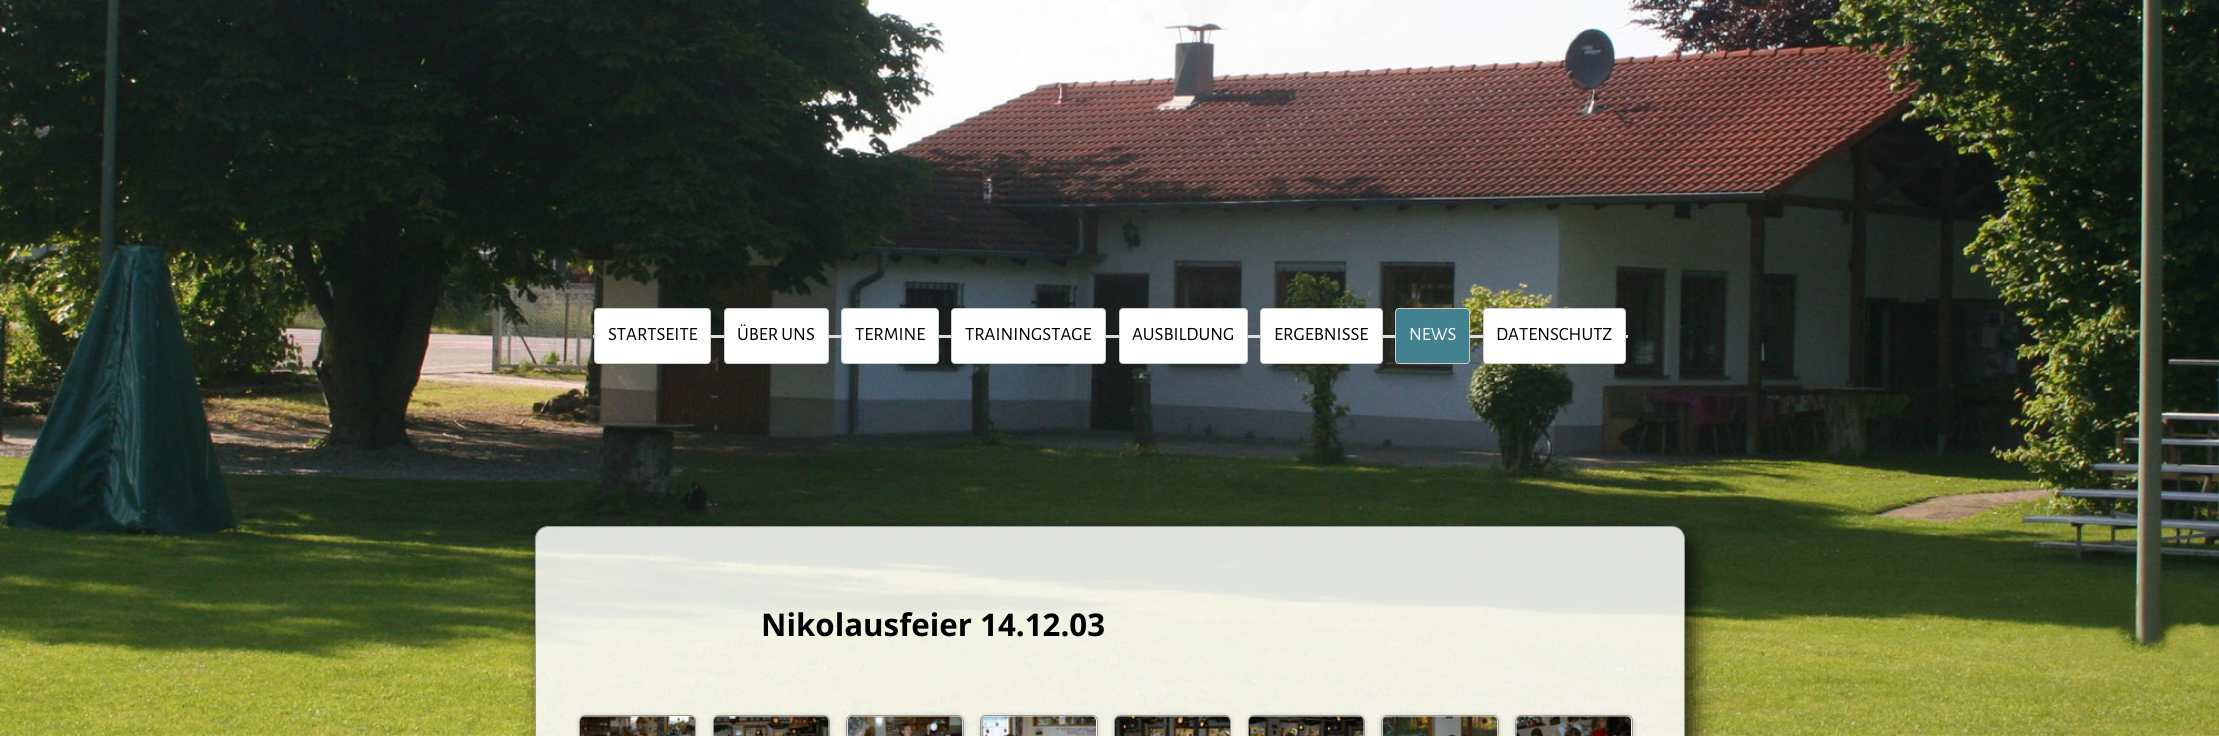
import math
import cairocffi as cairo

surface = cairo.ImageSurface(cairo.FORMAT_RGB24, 2219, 736)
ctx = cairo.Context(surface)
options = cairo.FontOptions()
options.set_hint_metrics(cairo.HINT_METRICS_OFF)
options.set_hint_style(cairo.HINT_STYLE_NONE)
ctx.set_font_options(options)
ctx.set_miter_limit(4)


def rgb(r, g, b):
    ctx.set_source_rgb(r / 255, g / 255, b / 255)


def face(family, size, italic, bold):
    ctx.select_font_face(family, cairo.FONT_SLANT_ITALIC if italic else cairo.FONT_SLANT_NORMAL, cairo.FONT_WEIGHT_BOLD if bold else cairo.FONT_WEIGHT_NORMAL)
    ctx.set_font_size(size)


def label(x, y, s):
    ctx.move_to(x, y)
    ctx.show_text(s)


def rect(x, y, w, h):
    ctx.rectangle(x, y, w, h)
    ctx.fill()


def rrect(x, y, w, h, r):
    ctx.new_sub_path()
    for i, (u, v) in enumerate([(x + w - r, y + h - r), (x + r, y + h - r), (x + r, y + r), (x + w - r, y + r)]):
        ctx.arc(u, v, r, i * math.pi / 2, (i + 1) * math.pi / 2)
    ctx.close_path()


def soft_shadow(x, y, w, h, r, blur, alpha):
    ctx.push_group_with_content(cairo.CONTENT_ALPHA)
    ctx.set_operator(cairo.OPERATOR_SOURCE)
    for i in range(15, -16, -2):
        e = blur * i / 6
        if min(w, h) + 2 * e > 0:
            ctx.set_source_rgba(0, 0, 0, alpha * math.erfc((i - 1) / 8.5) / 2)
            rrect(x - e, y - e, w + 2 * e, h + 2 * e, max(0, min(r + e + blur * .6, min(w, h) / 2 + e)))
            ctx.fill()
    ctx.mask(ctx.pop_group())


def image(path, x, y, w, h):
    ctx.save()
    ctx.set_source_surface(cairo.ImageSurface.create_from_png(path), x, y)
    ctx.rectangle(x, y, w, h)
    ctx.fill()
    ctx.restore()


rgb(255, 255, 255)
ctx.paint()
image('image0.png', 0, 0, 2219, 736)
rgb(221, 221, 221)
rect(593, 335, 1035, 3)
rgb(255, 255, 255)
rrect(594.5, 308.5, 116, 55, 3.5)
ctx.fill_preserve()
rgb(204, 204, 204)
ctx.set_line_width(1)
ctx.stroke()
face('Alegreya Sans', 18.75, 0, 0)
rgb(0, 0, 0)
label(608, 340, 'STARTSEITE')
rgb(255, 255, 255)
rrect(724.5, 308.5, 104, 55, 3.5)
ctx.fill_preserve()
rgb(204, 204, 204)
ctx.stroke()
rgb(0, 0, 0)
label(737, 340, 'ÜBER UNS')
rgb(255, 255, 255)
rrect(841.5, 308.5, 97, 55, 3.5)
ctx.fill_preserve()
rgb(204, 204, 204)
ctx.stroke()
rgb(0, 0, 0)
label(855, 340, 'TERMINE')
rgb(255, 255, 255)
rrect(951.5, 308.5, 154, 55, 3.5)
ctx.fill_preserve()
rgb(204, 204, 204)
ctx.stroke()
rgb(0, 0, 0)
label(965, 340, 'TRAININGSTAGE')
rgb(255, 255, 255)
rrect(1119.5, 308.5, 128, 55, 3.5)
ctx.fill_preserve()
rgb(204, 204, 204)
ctx.stroke()
rgb(0, 0, 0)
label(1132, 340, 'AUSBILDUNG')
rgb(255, 255, 255)
rrect(1260.5, 308.5, 122, 55, 3.5)
ctx.fill_preserve()
rgb(204, 204, 204)
ctx.stroke()
rgb(0, 0, 0)
label(1274, 340, 'ERGEBNISSE')
rgb(66, 129, 143)
rrect(1395.5, 308.5, 74, 55, 3.5)
ctx.fill_preserve()
rgb(204, 204, 204)
ctx.stroke()
rgb(255, 255, 255)
label(1409, 340, 'NEWS')
rrect(1483.5, 308.5, 142, 55, 3.5)
ctx.fill_preserve()
rgb(204, 204, 204)
ctx.stroke()
rgb(0, 0, 0)
label(1496, 340, 'DATENSCHUTZ')
ctx.save()
ctx.set_fill_rule(cairo.FILL_RULE_EVEN_ODD)
ctx.new_path()
ctx.move_to(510, 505)
ctx.line_to(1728, 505)
ctx.line_to(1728, 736)
ctx.line_to(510, 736)
ctx.close_path()
ctx.move_to(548, 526)
ctx.line_to(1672, 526)
ctx.curve_to(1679, 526, 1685, 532, 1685, 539)
ctx.line_to(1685, 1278)
ctx.curve_to(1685, 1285, 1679, 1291, 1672, 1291)
ctx.line_to(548, 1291)
ctx.curve_to(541, 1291, 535, 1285, 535, 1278)
ctx.line_to(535, 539)
ctx.curve_to(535, 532, 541, 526, 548, 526)
ctx.close_path()
ctx.clip()
rgb(0, 0, 0)
soft_shadow(544, 539, 1150, 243, 13, 11, 0.75)
ctx.restore()
ctx.set_source_rgba(1, 1, 1, 0.85)
rrect(535.5, 526.5, 1149, 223, 12.5)
ctx.fill_preserve()
rgb(153, 153, 153)
ctx.stroke()
face('Open Sans', 31.25, 0, 1)
rgb(0, 0, 0)
label(761, 636, 'Nikolausfeier 14.12.03')
rgb(0, 0, 0)
soft_shadow(579, 716, 117, 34, 6, 2.5, 0.2)
rgb(255, 255, 255)
rrect(579.5, 715.5, 116, 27, 5.5)
ctx.fill_preserve()
rgb(153, 153, 153)
ctx.stroke()
image('image1.png', 580, 716, 115, 20)
rgb(0, 0, 0)
soft_shadow(713, 716, 117, 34, 6, 2.5, 0.2)
rgb(255, 255, 255)
rrect(713.5, 715.5, 116, 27, 5.5)
ctx.fill_preserve()
rgb(153, 153, 153)
ctx.stroke()
image('image2.png', 713, 716, 116, 20)
rgb(0, 0, 0)
soft_shadow(846, 716, 118, 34, 6, 2.5, 0.2)
rgb(255, 255, 255)
rrect(846.5, 715.5, 117, 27, 5.5)
ctx.fill_preserve()
rgb(153, 153, 153)
ctx.stroke()
image('image3.png', 847, 716, 116, 20)
rgb(0, 0, 0)
soft_shadow(980, 716, 118, 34, 6, 2.5, 0.2)
rgb(255, 255, 255)
rrect(980.5, 715.5, 117, 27, 5.5)
ctx.fill_preserve()
rgb(153, 153, 153)
ctx.stroke()
image('image4.png', 981, 716, 116, 20)
rgb(0, 0, 0)
soft_shadow(1114, 716, 117, 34, 6, 2.5, 0.2)
rgb(255, 255, 255)
rrect(1114.5, 715.5, 116, 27, 5.5)
ctx.fill_preserve()
rgb(153, 153, 153)
ctx.stroke()
image('image5.png', 1115, 716, 115, 20)
rgb(0, 0, 0)
soft_shadow(1248, 716, 117, 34, 6, 2.5, 0.2)
rgb(255, 255, 255)
rrect(1248.5, 715.5, 116, 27, 5.5)
ctx.fill_preserve()
rgb(153, 153, 153)
ctx.stroke()
image('image6.png', 1248, 716, 116, 20)
rgb(0, 0, 0)
soft_shadow(1381, 716, 118, 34, 6, 2.5, 0.2)
rgb(255, 255, 255)
rrect(1381.5, 715.5, 117, 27, 5.5)
ctx.fill_preserve()
rgb(153, 153, 153)
ctx.stroke()
image('image7.png', 1382, 716, 116, 20)
rgb(0, 0, 0)
soft_shadow(1515, 716, 118, 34, 6, 2.5, 0.2)
rgb(255, 255, 255)
rrect(1515.5, 715.5, 117, 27, 5.5)
ctx.fill_preserve()
rgb(153, 153, 153)
ctx.stroke()
image('image8.png', 1516, 716, 116, 20)
surface.write_to_png('render.png')
